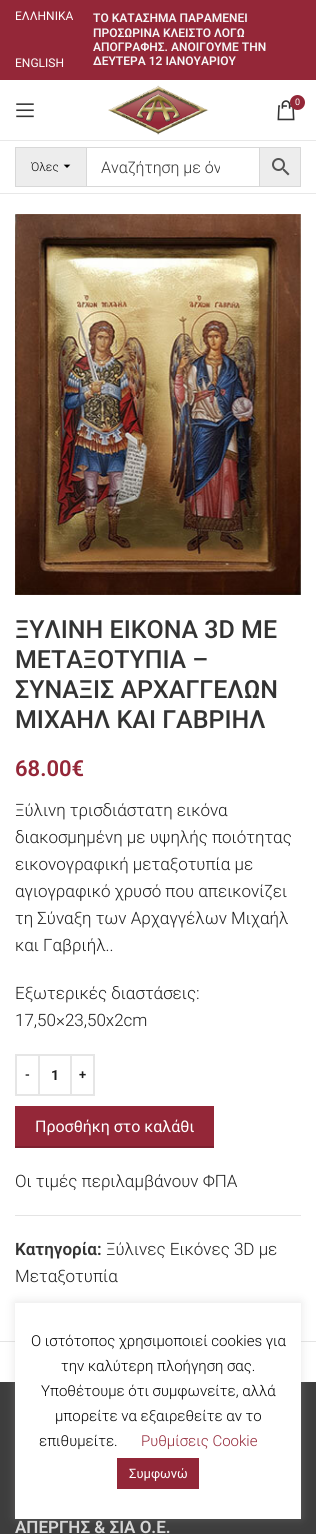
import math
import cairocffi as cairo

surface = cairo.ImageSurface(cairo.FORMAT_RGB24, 316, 1534)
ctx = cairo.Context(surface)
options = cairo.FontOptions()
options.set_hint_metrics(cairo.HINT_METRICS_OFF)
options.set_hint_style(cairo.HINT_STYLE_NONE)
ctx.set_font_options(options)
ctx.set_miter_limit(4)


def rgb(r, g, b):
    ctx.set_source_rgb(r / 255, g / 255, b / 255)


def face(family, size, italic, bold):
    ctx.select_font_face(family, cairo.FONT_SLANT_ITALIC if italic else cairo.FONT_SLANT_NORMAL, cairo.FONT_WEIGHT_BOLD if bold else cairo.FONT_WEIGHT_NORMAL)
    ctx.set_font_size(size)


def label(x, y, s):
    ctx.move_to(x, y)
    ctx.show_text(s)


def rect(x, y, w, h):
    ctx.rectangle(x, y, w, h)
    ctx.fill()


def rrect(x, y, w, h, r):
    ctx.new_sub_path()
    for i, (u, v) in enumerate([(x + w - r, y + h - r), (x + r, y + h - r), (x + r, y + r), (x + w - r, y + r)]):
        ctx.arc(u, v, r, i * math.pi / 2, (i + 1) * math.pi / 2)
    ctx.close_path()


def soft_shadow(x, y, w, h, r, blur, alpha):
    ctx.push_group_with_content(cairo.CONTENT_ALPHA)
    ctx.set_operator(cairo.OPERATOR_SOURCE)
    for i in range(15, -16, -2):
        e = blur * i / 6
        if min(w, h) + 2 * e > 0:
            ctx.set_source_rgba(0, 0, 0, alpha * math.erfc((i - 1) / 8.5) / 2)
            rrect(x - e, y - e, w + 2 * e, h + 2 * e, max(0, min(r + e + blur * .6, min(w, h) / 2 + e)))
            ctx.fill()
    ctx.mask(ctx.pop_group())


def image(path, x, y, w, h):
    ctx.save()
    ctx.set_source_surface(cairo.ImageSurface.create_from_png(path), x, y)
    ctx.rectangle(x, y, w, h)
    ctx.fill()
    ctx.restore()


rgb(255, 255, 255)
ctx.paint()
rgb(148, 39, 56)
rect(0, 0, 316, 80)
face('Roboto', 12, 0, 0)
rgb(255, 255, 255)
label(15, 20, 'ΕΛΛΗΝΙΚΑ')
label(15, 67, 'ENGLISH')
face('Roboto SemiBold', 12, 0, 0)
rgb(246, 246, 246)
label(93, 22, 'ΤΟ ΚΑΤΑΣΗΜΑ ΠΑΡΑΜΕΝΕΙ')
label(93, 37, 'ΠΡΟΣΩΡΙΝΑ ΚΛΕΙΣΤΟ ΛΟΓΩ')
label(93, 51, 'ΑΠΟΓΡΑΦΗΣ. ΑΝΟΙΓΟΥΜΕ ΤΗΝ')
label(93, 65, 'ΔΕΥΤΕΡΑ 12 ΙΑΝΟΥΑΡΙΟΥ')
rgb(232, 232, 232)
rect(0, 140, 316, 1)
image('image0.png', 108, 85, 101, 50)
image('image1.png', 277, 100, 18, 21)
rgb(148, 39, 56)
ctx.arc(297.5, 102.5, 7.5, 0, 2 * math.pi)
ctx.fill()
face('Roboto', 9, 0, 0)
rgb(255, 255, 255)
label(295, 105, '0')
image('image2.png', 16, 103, 18, 15)
rgb(232, 232, 232)
rect(0, 193, 316, 1)
rgb(237, 237, 237)
ctx.rectangle(15.5, 147.5, 71, 39)
ctx.fill_preserve()
rgb(216, 216, 216)
ctx.set_line_width(1)
ctx.stroke()
ctx.save()
ctx.rectangle(31, 162, 40, 10)
ctx.clip()
face('Roboto Light', 12, 0, 0)
rgb(0, 0, 0)
label(31, 171, 'Όλες')
ctx.restore()
image('image3.png', 63, 164, 8, 4)
rgb(237, 237, 237)
ctx.rectangle(259.5, 147.5, 41, 39)
ctx.fill_preserve()
rgb(216, 216, 216)
ctx.stroke()
rect(86, 147, 174, 1)
rect(86, 186, 174, 1)
ctx.save()
ctx.rectangle(101, 158, 119, 19)
ctx.clip()
face('Roboto Light', 16, 0, 0)
rgb(51, 51, 51)
label(101, 173, 'Αναζήτηση με όν')
ctx.restore()
image('image4.png', 272, 158, 18, 18)
image('image5.png', 15, 214, 286, 381)
face('Roboto Medium', 25, 0, 0)
rgb(51, 51, 51)
label(15, 638, 'ΞΥΛΙΝΗ ΕΙΚΟΝΑ 3D ΜΕ')
label(15, 668, 'ΜΕΤΑΞΟΤΥΠΙΑ –')
label(15, 698, 'ΣΥΝΑΞΙΣ ΑΡΧΑΓΓΕΛΩΝ')
label(15, 728, 'ΜΙΧΑΗΛ ΚΑΙ ΓΑΒΡΙΗΛ')
face('Roboto SemiBold', 22, 0, 0)
rgb(148, 39, 56)
label(15, 776, '68.00€')
face('Roboto Light', 17, 0, 0)
rgb(30, 30, 30)
label(15, 816, 'Ξύλινη τρισδιάστατη εικόνα')
label(15, 843, 'διακοσμημένη με υψηλής ποιότητας')
label(15, 870, 'εικονογραφική μεταξοτυπία με')
label(15, 897, 'αγιογραφικό χρυσό που απεικονίζει')
label(15, 924, 'τη Σύναξη των Αρχαγγέλων Μιχαήλ')
label(15, 951, 'και Γαβριήλ..')
label(15, 999, 'Εξωτερικές διαστάσεις:')
label(15, 1026, '17,50×23,50x2cm')
ctx.rectangle(16, 1055, 23, 40)
rgb(230, 230, 230)
ctx.set_line_width(2)
ctx.stroke()
face('Roboto SemiBold', 13, 0, 0)
rgb(30, 30, 30)
label(25, 1079, '-')
rgb(230, 230, 230)
rect(40, 1054, 30, 2)
rect(40, 1094, 30, 2)
face('Roboto', 14, 0, 1)
rgb(30, 30, 30)
label(51, 1080, '1')
ctx.rectangle(71, 1055, 23, 40)
rgb(230, 230, 230)
ctx.stroke()
face('Roboto SemiBold', 13, 0, 0)
rgb(30, 30, 30)
label(79, 1079, '+')
rgb(148, 39, 56)
rect(15, 1106, 199, 40)
rgb(126, 33, 48)
rect(15, 1146, 199, 2)
face('Roboto', 16, 0, 0)
rgb(255, 255, 255)
label(35, 1132, 'Προσθήκη στο καλάθι')
face('Roboto Light', 17, 0, 0)
rgb(30, 30, 30)
label(15, 1187, 'Οι τιμές περιλαμβάνουν ΦΠΑ')
rgb(228, 228, 228)
rect(15, 1215, 286, 1)
face('Roboto SemiBold', 17, 0, 0)
rgb(51, 51, 51)
label(15, 1255, 'Κατηγορία:')
face('Roboto Light', 17, 0, 0)
rgb(30, 30, 30)
label(106, 1255, 'Ξύλινες Εικόνες 3D με')
label(15, 1282, 'Μεταξοτυπία')
rgb(228, 228, 228)
rect(0, 1341, 316, 1)
rgb(61, 61, 61)
rect(0, 1382, 316, 152)
face('Roboto SemiBold', 17, 0, 0)
rgb(216, 216, 216)
label(15, 1533, 'ΑΠΕΡΓΗΣ & ΣΙΑ Ο.Ε.')
rgb(172, 171, 171)
soft_shadow(15, 1302, 286, 216, 0, 5, 0.3)
rgb(255, 255, 255)
rect(15, 1303, 286, 216)
face('Roboto Light', 15, 0, 0)
rgb(0, 0, 0)
label(31, 1346, 'Ο ιστότοπος χρησιμοποιεί cookies για')
label(61, 1371, 'την καλύτερη πλοήγηση σας.')
label(41, 1396, 'Υποθέτουμε ότι συμφωνείτε, αλλά')
label(55, 1421, 'μπορείτε να εξαιρεθείτε αν το')
label(39, 1446, 'επιθυμείτε.')
rgb(148, 39, 56)
label(141, 1446, 'Ρυθμίσεις Cookie')
rgb(147, 39, 56)
rect(117, 1458, 82, 31)
face('Roboto', 13, 0, 0)
rgb(255, 255, 255)
label(129, 1478, 'Συμφωνώ')
surface.write_to_png('render.png')
